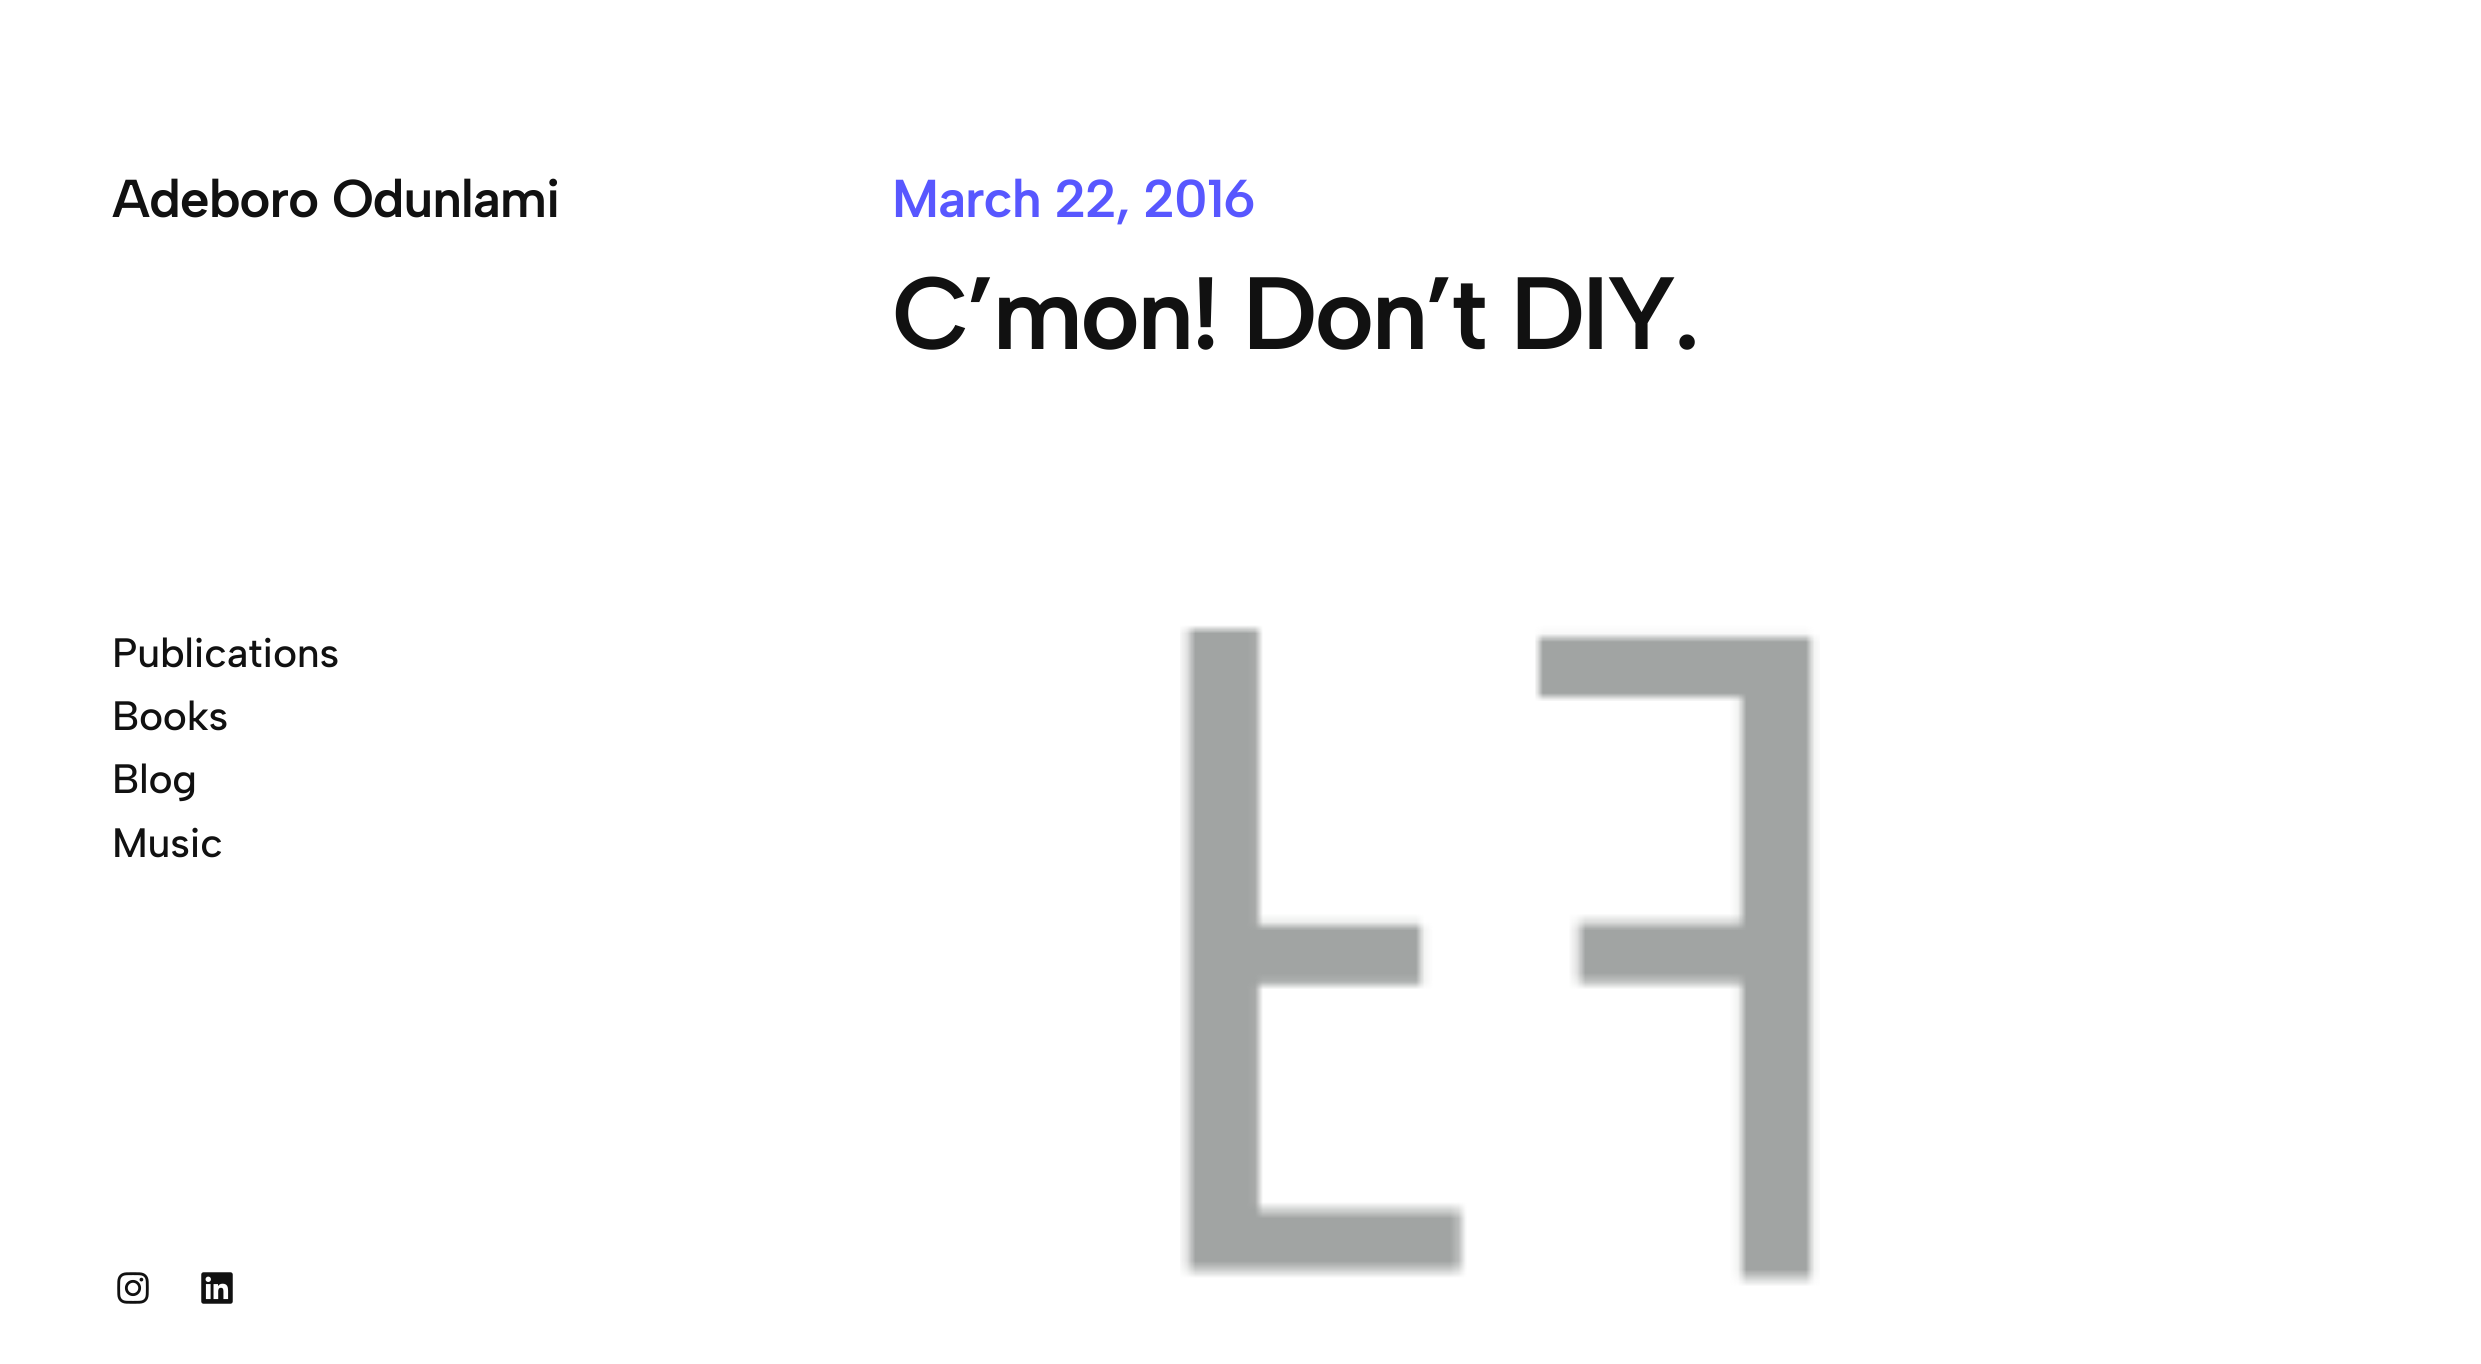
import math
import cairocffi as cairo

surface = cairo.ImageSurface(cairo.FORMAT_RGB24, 2481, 1364)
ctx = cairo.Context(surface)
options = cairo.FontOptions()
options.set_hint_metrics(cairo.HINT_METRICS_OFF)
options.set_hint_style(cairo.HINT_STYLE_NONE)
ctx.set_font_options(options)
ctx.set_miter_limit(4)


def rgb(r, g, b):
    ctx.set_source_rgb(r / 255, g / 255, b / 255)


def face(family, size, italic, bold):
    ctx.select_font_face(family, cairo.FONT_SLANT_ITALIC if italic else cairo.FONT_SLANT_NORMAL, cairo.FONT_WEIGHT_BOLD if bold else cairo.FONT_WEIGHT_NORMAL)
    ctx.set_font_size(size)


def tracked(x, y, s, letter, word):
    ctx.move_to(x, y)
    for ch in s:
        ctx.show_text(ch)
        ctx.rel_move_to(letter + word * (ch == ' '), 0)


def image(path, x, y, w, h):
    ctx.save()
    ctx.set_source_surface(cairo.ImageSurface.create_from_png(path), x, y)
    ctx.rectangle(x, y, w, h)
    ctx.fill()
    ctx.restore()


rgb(255, 255, 255)
ctx.paint()
face('Albert Sans SemiBold', 53.25, 0, 0)
rgb(17, 17, 17)
tracked(112, 217, 'Adeboro Odunlami', -1.1, 0)
face('Albert Sans Medium', 41, 0, 0)
tracked(112, 667, 'Publications', -0.3, 0)
tracked(112, 730, 'Books', -0.3, 0)
tracked(112, 793, 'Blog', -0.3, 0)
tracked(112, 857, 'Music', -0.3, 0)
image('image0.png', 117, 1272, 32, 32)
image('image1.png', 201, 1272, 32, 32)
face('Albert Sans SemiBold', 53.25, 0, 0)
rgb(88, 87, 255)
tracked(892, 217, 'March 22, 2016', -1.1, 0)
face('Albert Sans SemiBold', 102.5, 0, 0)
rgb(17, 17, 17)
tracked(892, 349, 'C’mon! Don’t DIY.', -3.1, 0)
image('image2.png', 1180, 625, 640, 661)
surface.write_to_png('render.png')
